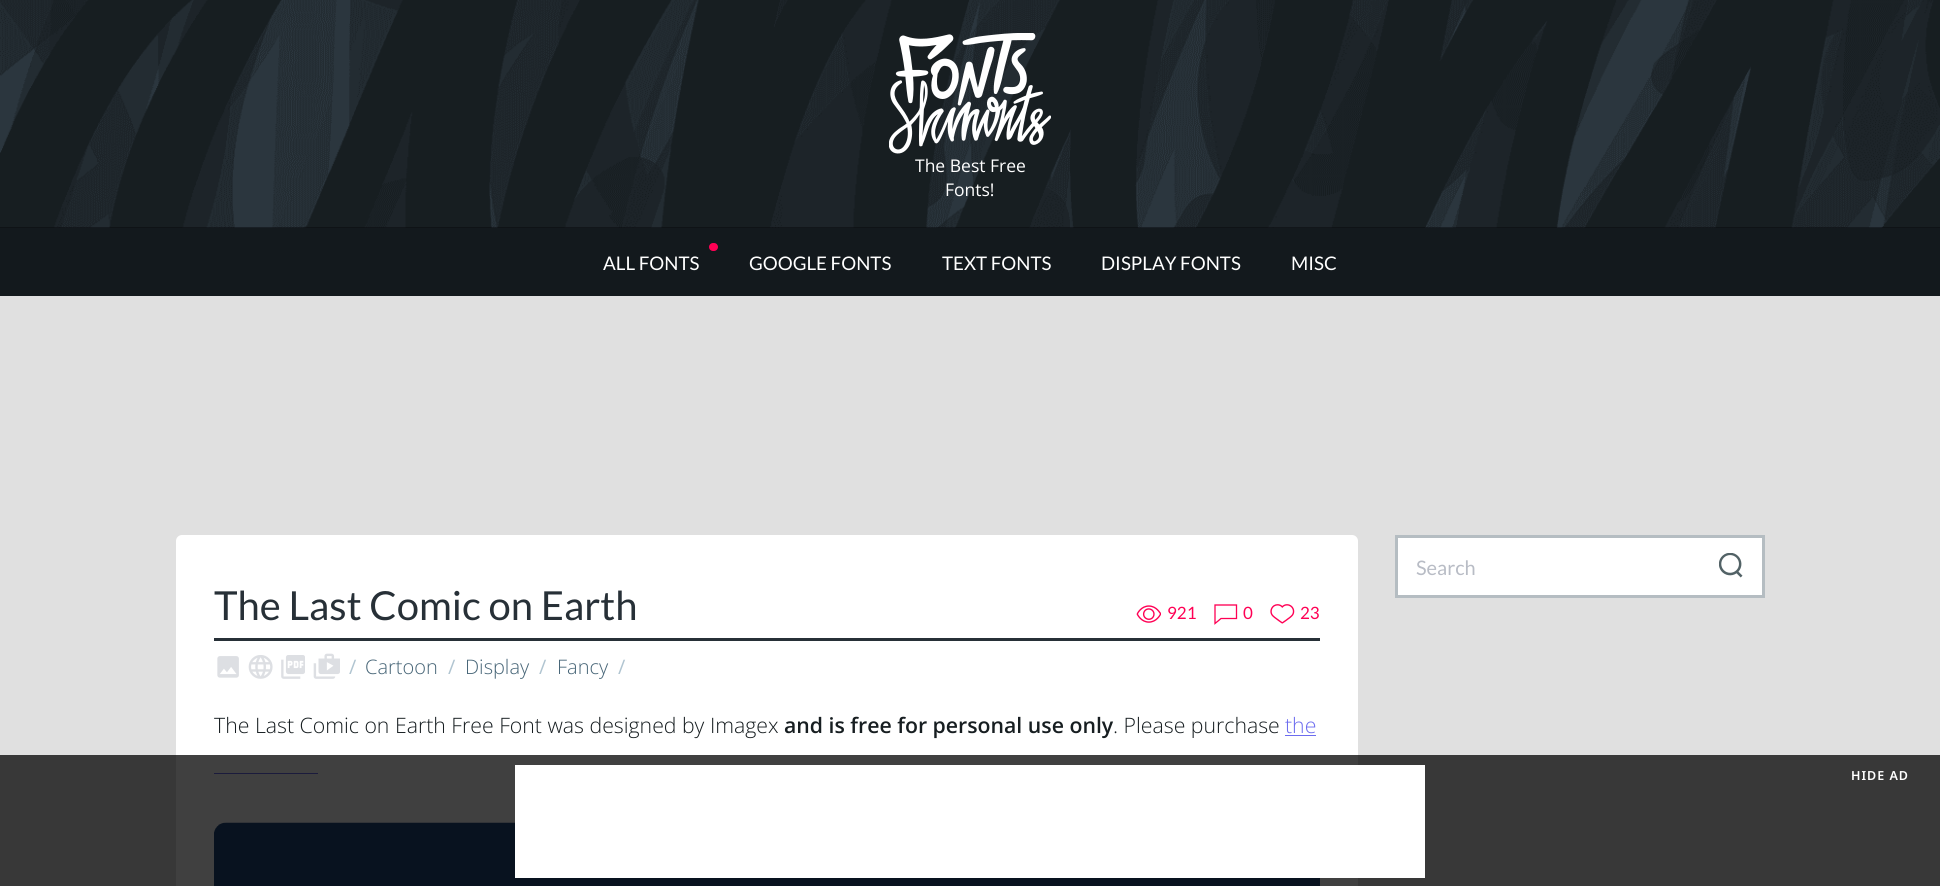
import math
import cairocffi as cairo

surface = cairo.ImageSurface(cairo.FORMAT_RGB24, 1940, 886)
ctx = cairo.Context(surface)
options = cairo.FontOptions()
options.set_hint_metrics(cairo.HINT_METRICS_OFF)
options.set_hint_style(cairo.HINT_STYLE_NONE)
ctx.set_font_options(options)
ctx.set_miter_limit(4)


def rgb(r, g, b):
    ctx.set_source_rgb(r / 255, g / 255, b / 255)


def face(family, size, italic, bold):
    ctx.select_font_face(family, cairo.FONT_SLANT_ITALIC if italic else cairo.FONT_SLANT_NORMAL, cairo.FONT_WEIGHT_BOLD if bold else cairo.FONT_WEIGHT_NORMAL)
    ctx.set_font_size(size)


def label(x, y, s):
    ctx.move_to(x, y)
    ctx.show_text(s)


def tracked(x, y, s, letter, word):
    ctx.move_to(x, y)
    for ch in s:
        ctx.show_text(ch)
        ctx.rel_move_to(letter + word * (ch == ' '), 0)


def rect(x, y, w, h):
    ctx.rectangle(x, y, w, h)
    ctx.fill()


def rrect(x, y, w, h, r):
    ctx.new_sub_path()
    for i, (u, v) in enumerate([(x + w - r, y + h - r), (x + r, y + h - r), (x + r, y + r), (x + w - r, y + r)]):
        ctx.arc(u, v, r, i * math.pi / 2, (i + 1) * math.pi / 2)
    ctx.close_path()


def image(path, x, y, w, h):
    ctx.save()
    ctx.set_source_surface(cairo.ImageSurface.create_from_png(path), x, y)
    ctx.rectangle(x, y, w, h)
    ctx.fill()
    ctx.restore()


rgb(224, 224, 224)
ctx.paint()
rgb(8, 9, 12)
rect(0, 227, 1940, 1)
image('image0.png', 0, 0, 1940, 228)
image('image1.png', 889, 33, 162, 121)
face('Open Sans', 17.5, 0, 0)
rgb(255, 255, 255)
label(915, 172, 'The Best Free')
label(945, 196, 'Fonts!')
rgb(19, 25, 29)
rect(0, 228, 1940, 68)
rgb(255, 0, 84)
rrect(709, 243, 9, 8, 4)
ctx.fill()
face('Lato', 18.75, 0, 0)
rgb(255, 255, 255)
label(603, 270, 'ALL FONTS')
label(749, 270, 'GOOGLE FONTS')
label(942, 270, 'TEXT FONTS')
label(1101, 270, 'DISPLAY FONTS')
label(1291, 270, 'MISC')
ctx.rectangle(1396.5, 536.5, 367, 60)
ctx.fill_preserve()
rgb(181, 189, 194)
ctx.set_line_width(3)
ctx.stroke()
face('Lato', 20, 0, 0)
rgb(184, 188, 197)
label(1416, 575, 'Search')
image('image2.png', 1719, 553, 24, 25)
rgb(255, 255, 255)
rrect(176, 535, 1182, 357, 6)
ctx.fill()
face('Lato', 40, 0, 0)
rgb(39, 48, 55)
label(214, 620, 'The Last Comic on Earth')
image('image3.png', 1136, 605, 25, 18)
face('Lato', 17, 0, 0)
rgb(255, 0, 84)
label(1167, 619, '921')
ctx.new_path()
ctx.move_to(1236.5, 605)
ctx.line_to(1215, 605)
ctx.line_to(1215, 623.5)
ctx.line_to(1221, 618.5)
ctx.line_to(1236.5, 618.5)
ctx.close_path()
ctx.set_line_width(1.3)
ctx.stroke()
label(1243, 619, '0')
image('image4.png', 1270, 604, 25, 20)
label(1300, 619, '23')
rgb(39, 48, 55)
rect(214, 638, 1106, 3)
image('image5.png', 217, 656, 22, 22)
image('image6.png', 248, 655, 25, 24)
image('image7.png', 281, 655, 24, 24)
image('image8.png', 313, 653, 27, 26)
face('Open Sans', 20, 0, 0)
rgb(177, 197, 209)
label(349, 674, '/')
face('Open Sans Light', 20, 0, 0)
rgb(71, 101, 119)
label(365, 674, 'Cartoon')
face('Open Sans', 20, 0, 0)
rgb(177, 197, 209)
label(448, 674, '/')
face('Open Sans Light', 20, 0, 0)
rgb(71, 101, 119)
label(465, 674, 'Display')
face('Open Sans', 20, 0, 0)
rgb(177, 197, 209)
label(539, 674, '/')
face('Open Sans Light', 20, 0, 0)
rgb(71, 101, 119)
label(557, 674, 'Fancy')
face('Open Sans', 20, 0, 0)
rgb(177, 197, 209)
label(618, 674, '/')
face('Open Sans Light', 21.25, 0, 0)
rgb(23, 30, 33)
label(214, 733, 'The Last Comic on Earth Free Font was designed by Imagex')
face('Open Sans SemiBold', 21.25, 0, 0)
label(784, 733, 'and is free for personal use only')
face('Open Sans Light', 21.25, 0, 0)
label(1113, 733, '. Please purchase')
rgb(108, 108, 239)
label(1285, 733, 'the')
rect(1285, 735, 31, 1)
rect(214, 773, 104, 1)
image('image9.png', 214, 822, 1106, 64)
ctx.set_source_rgba(0, 0, 0, 0.75)
rect(0, 755, 1940, 131)
rgb(255, 255, 255)
rect(515, 765, 910, 113)
face('Noto Sans SemiBold', 12.5, 0, 0)
tracked(1851, 780, 'HIDE AD', 1, 0)
surface.write_to_png('render.png')
